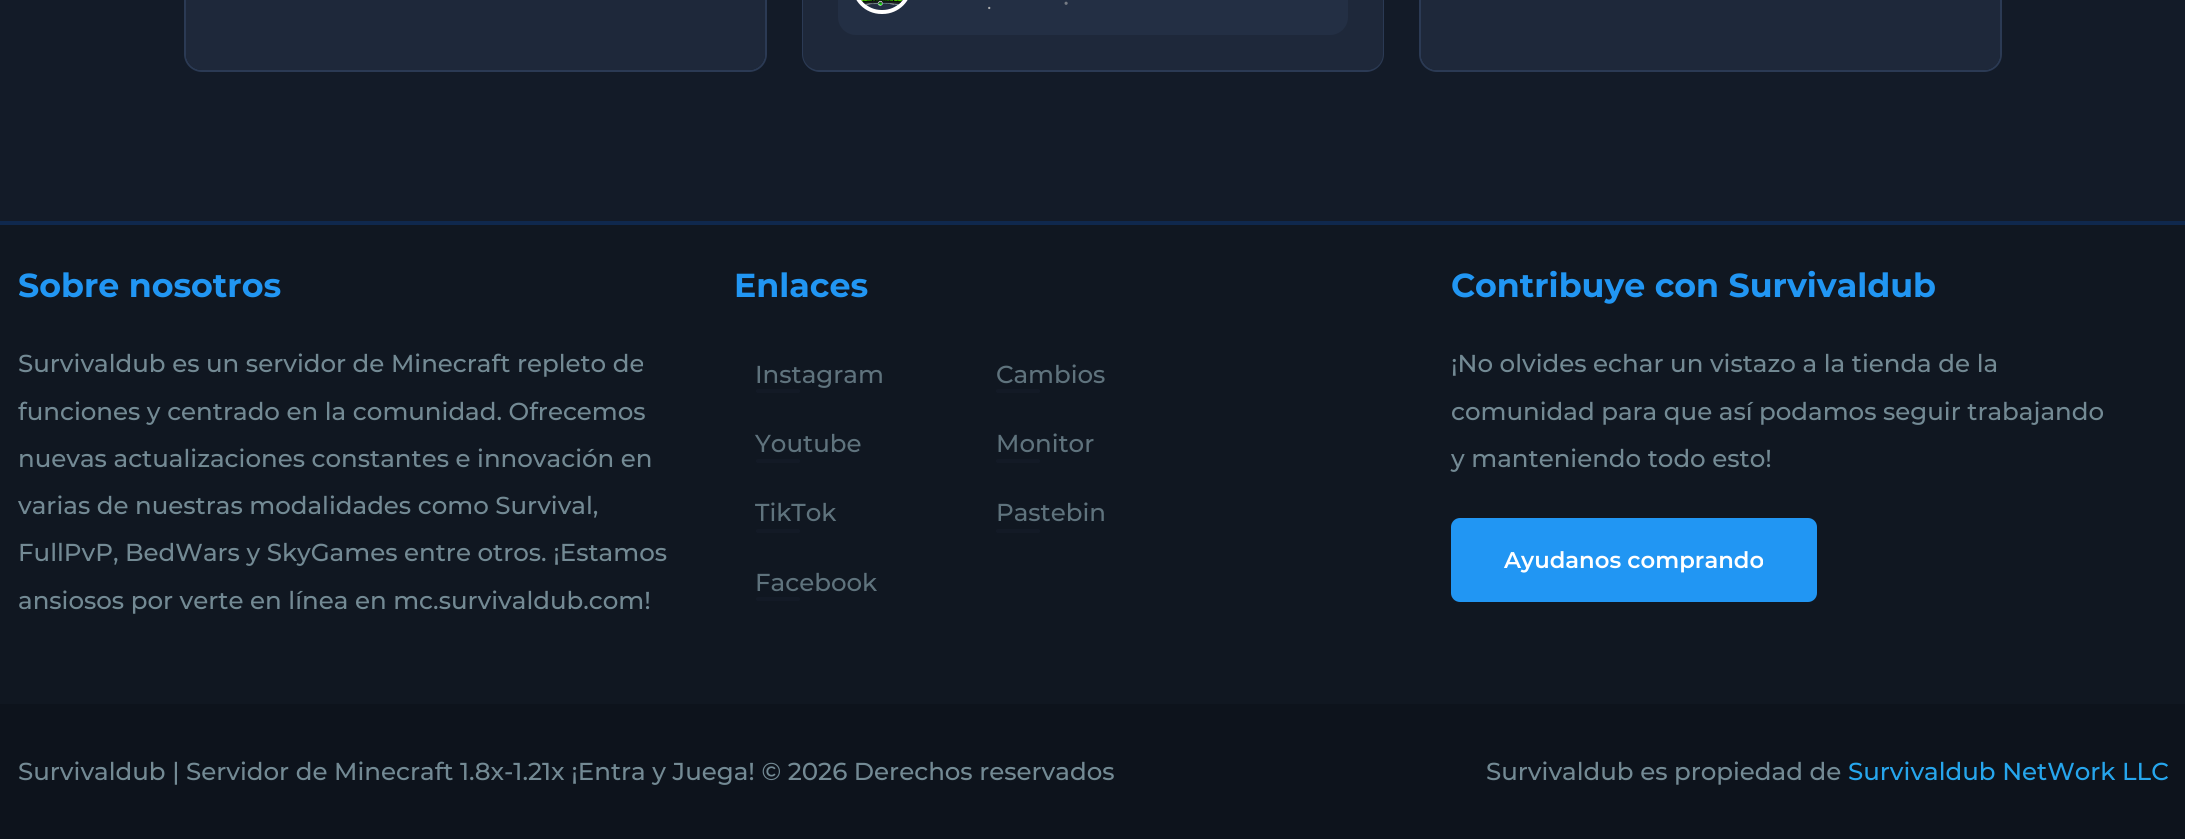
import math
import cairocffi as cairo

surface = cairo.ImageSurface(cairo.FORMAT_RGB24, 2185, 839)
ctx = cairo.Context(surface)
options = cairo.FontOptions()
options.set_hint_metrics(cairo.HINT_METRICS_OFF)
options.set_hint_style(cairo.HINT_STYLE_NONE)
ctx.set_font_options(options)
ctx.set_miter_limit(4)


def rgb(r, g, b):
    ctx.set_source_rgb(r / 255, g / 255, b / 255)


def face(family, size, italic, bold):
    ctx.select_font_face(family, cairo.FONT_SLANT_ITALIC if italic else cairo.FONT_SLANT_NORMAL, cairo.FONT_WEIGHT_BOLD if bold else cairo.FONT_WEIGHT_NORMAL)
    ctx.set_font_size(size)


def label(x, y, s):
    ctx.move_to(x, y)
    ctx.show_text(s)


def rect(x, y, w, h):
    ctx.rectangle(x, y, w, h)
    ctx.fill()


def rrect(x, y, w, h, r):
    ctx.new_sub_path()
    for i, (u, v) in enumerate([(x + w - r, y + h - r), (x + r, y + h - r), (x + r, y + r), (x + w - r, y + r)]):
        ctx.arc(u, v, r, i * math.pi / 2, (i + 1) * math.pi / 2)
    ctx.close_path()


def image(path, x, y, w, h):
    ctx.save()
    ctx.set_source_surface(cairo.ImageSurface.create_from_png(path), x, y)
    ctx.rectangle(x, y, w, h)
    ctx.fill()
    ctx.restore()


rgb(19, 27, 40)
ctx.paint()
rrect(185, -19, 581, 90, 17)
rgb(43, 58, 84)
ctx.stroke()
rgb(30, 40, 58)
ctx.new_path()
ctx.move_to(186, -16)
ctx.line_to(765, -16)
ctx.line_to(765, 54)
ctx.curve_to(765, 63, 758, 70, 749, 70)
ctx.line_to(202, 70)
ctx.curve_to(193, 70, 186, 63, 186, 54)
ctx.close_path()
ctx.fill()
rrect(803, -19, 580, 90, 17)
rgb(43, 58, 84)
ctx.stroke()
rgb(30, 40, 58)
ctx.new_path()
ctx.move_to(803, -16)
ctx.line_to(1383, -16)
ctx.line_to(1383, 54)
ctx.curve_to(1383, 63, 1376, 70, 1367, 70)
ctx.line_to(819, 70)
ctx.curve_to(810, 70, 803, 63, 803, 54)
ctx.close_path()
ctx.fill()
rgb(35, 47, 68)
rrect(838, -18, 510, 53, 18)
ctx.fill()
rrect(854, -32, 56, 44, 27.5)
rgb(255, 255, 255)
ctx.set_line_width(4)
ctx.stroke()
image('image0.png', 861, 0, 42, 7)
face('Montserrat', 21, 0, 0)
rgb(118, 123, 132)
label(1063, 9, '•')
rgb(174, 174, 174)
label(987, 9, '.')
rrect(1420, -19, 581, 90, 17)
rgb(43, 58, 84)
ctx.set_line_width(2)
ctx.stroke()
rgb(30, 40, 58)
ctx.new_path()
ctx.move_to(1421, -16)
ctx.line_to(2000, -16)
ctx.line_to(2000, 54)
ctx.curve_to(2000, 63, 1993, 70, 1984, 70)
ctx.line_to(1437, 70)
ctx.curve_to(1428, 70, 1421, 63, 1421, 54)
ctx.close_path()
ctx.fill()
rgb(16, 23, 33)
rect(0, 225, 2185, 479)
rgb(15, 40, 77)
rect(0, 221, 2185, 4)
face('Montserrat', 33.25, 0, 1)
rgb(33, 150, 243)
label(18, 297, 'Sobre nosotros')
face('Montserrat Medium', 24.5, 0, 0)
rgb(115, 138, 148)
label(18, 372, 'Survivaldub es un servidor de Minecraft repleto de')
label(18, 420, 'funciones y centrado en la comunidad. Ofrecemos')
label(18, 467, 'nuevas actualizaciones constantes e innovación en')
label(18, 514, 'varias de nuestras modalidades como Survival,')
label(18, 561, 'FullPvP, BedWars y SkyGames entre otros. ¡Estamos')
label(18, 609, 'ansiosos por verte en línea en mc.survivaldub.com!')
face('Montserrat', 33.25, 0, 1)
rgb(33, 150, 243)
label(734, 297, 'Enlaces')
face('Montserrat Medium', 24.5, 0, 0)
rgb(95, 115, 125)
label(755, 383, 'Instagram')
rgb(19, 26, 38)
rrect(756, 389, 44, 4, 2)
ctx.fill()
rgb(95, 115, 125)
label(996, 383, 'Cambios')
rgb(19, 26, 38)
rrect(996, 389, 44, 4, 2)
ctx.fill()
rgb(95, 115, 125)
label(755, 452, 'Youtube')
rgb(19, 26, 38)
rrect(756, 459, 44, 4, 2)
ctx.fill()
rgb(95, 115, 125)
label(996, 452, 'Monitor')
rgb(19, 26, 38)
rrect(996, 459, 44, 4, 2)
ctx.fill()
rgb(95, 115, 125)
label(755, 521, 'TikTok')
rgb(19, 26, 38)
rrect(756, 529, 44, 4, 2)
ctx.fill()
rgb(95, 115, 125)
label(996, 521, 'Pastebin')
rgb(19, 26, 38)
rrect(996, 529, 44, 4, 2)
ctx.fill()
rgb(95, 115, 125)
label(755, 591, 'Facebook')
rgb(19, 26, 38)
rrect(756, 597, 44, 4, 2)
ctx.fill()
face('Montserrat', 33.25, 0, 1)
rgb(33, 150, 243)
label(1451, 297, 'Contribuye con Survivaldub')
face('Montserrat Medium', 24.5, 0, 0)
rgb(115, 138, 148)
label(1451, 372, '¡No olvides echar un vistazo a la tienda de la')
label(1451, 420, 'comunidad para que así podamos seguir trabajando')
label(1451, 467, 'y manteniendo todo esto!')
rgb(33, 150, 243)
rrect(1451, 518, 366, 84, 9)
ctx.fill()
face('Montserrat SemiBold', 22.75, 0, 0)
rgb(255, 255, 255)
label(1504, 568, 'Ayudanos comprando')
rgb(13, 19, 28)
rect(0, 704, 2185, 135)
face('Montserrat Medium', 24.5, 0, 0)
rgb(115, 138, 148)
label(18, 780, 'Survivaldub | Servidor de Minecraft 1.8x-1.21x ¡Entra y Juega! © 2026 Derechos reservados')
label(1486, 780, 'Survivaldub es propiedad de')
rgb(38, 166, 237)
label(1848, 780, 'Survivaldub NetWork LLC')
surface.write_to_png('render.png')
